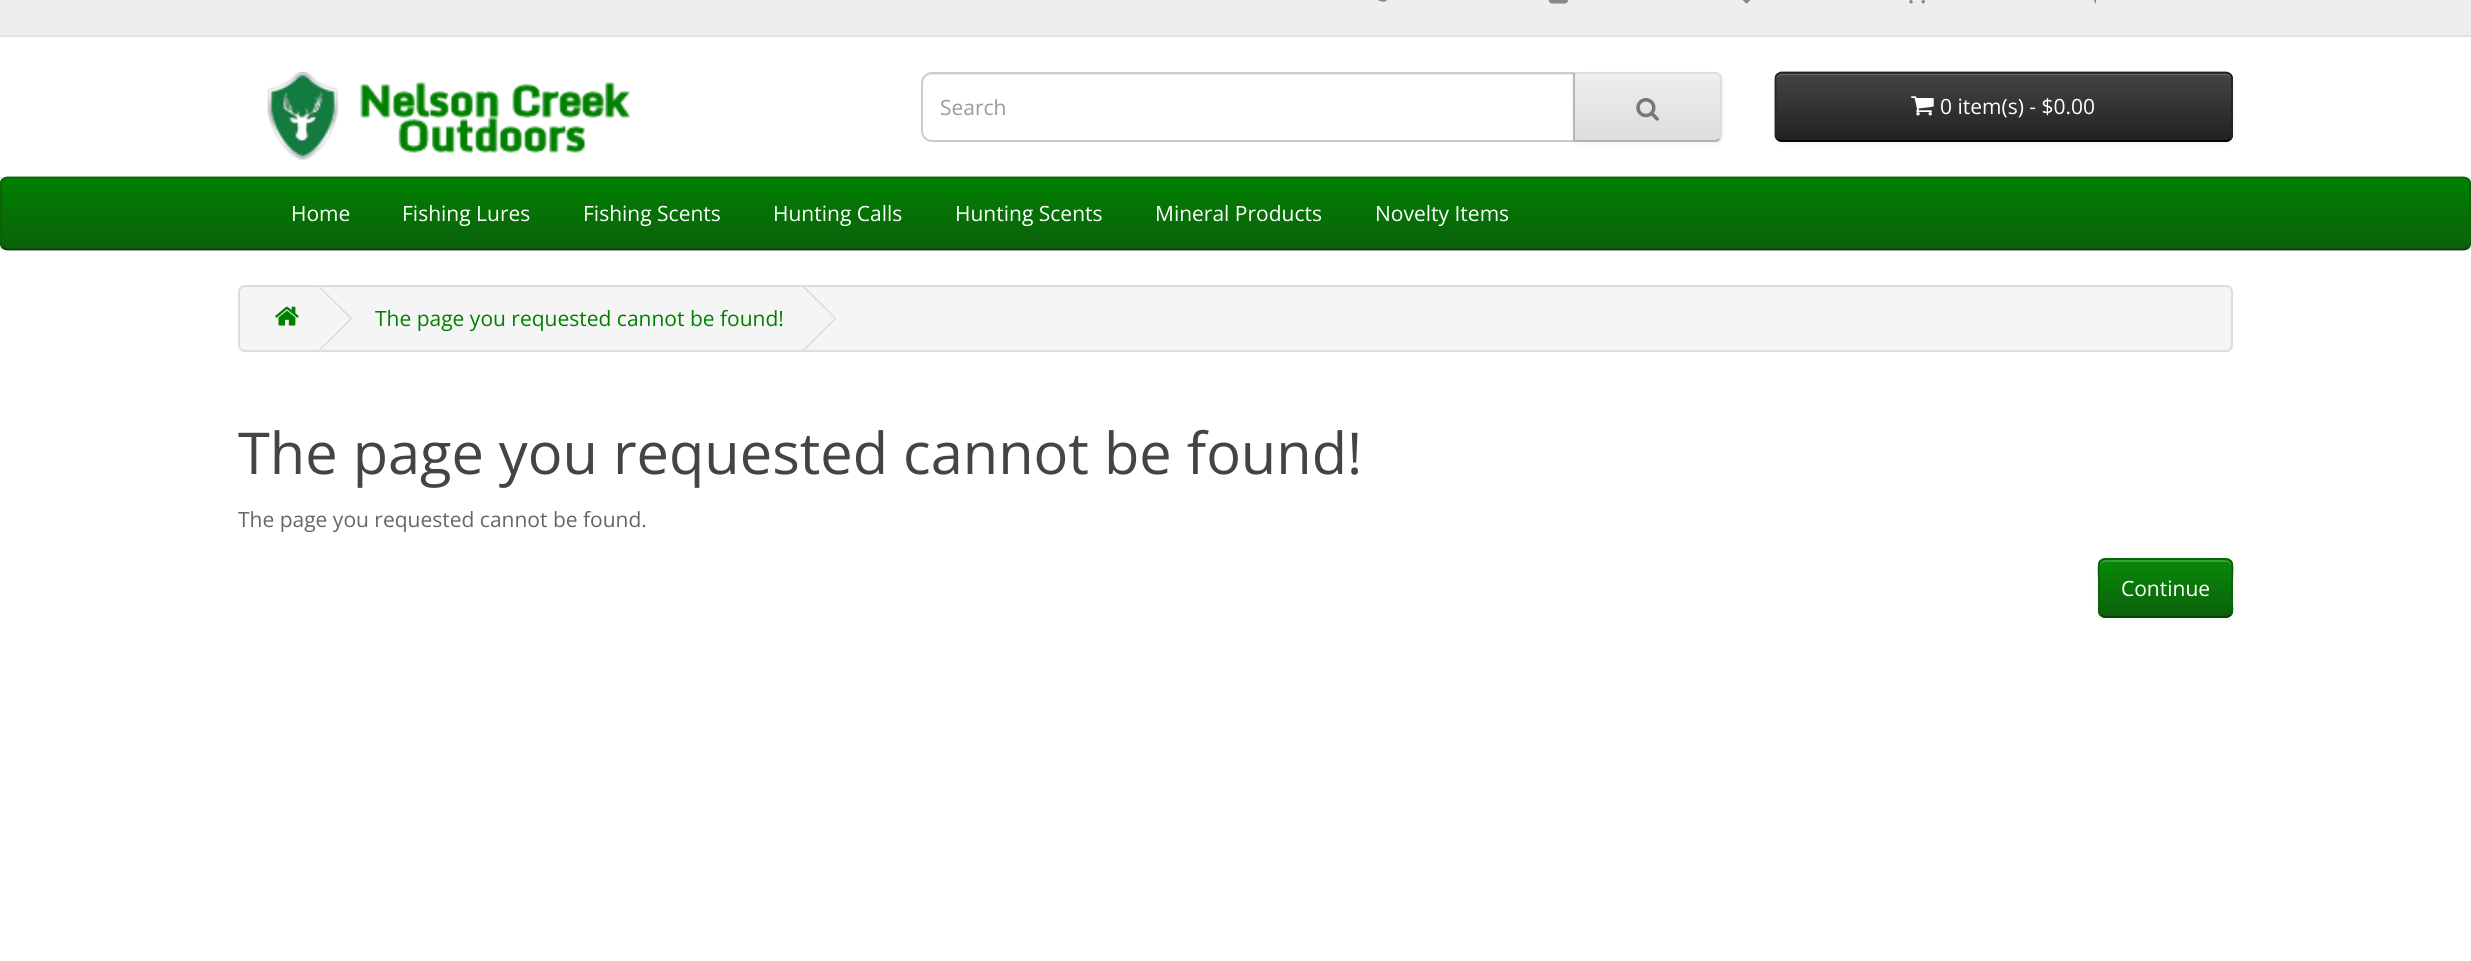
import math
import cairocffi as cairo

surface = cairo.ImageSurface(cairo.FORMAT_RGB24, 2471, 961)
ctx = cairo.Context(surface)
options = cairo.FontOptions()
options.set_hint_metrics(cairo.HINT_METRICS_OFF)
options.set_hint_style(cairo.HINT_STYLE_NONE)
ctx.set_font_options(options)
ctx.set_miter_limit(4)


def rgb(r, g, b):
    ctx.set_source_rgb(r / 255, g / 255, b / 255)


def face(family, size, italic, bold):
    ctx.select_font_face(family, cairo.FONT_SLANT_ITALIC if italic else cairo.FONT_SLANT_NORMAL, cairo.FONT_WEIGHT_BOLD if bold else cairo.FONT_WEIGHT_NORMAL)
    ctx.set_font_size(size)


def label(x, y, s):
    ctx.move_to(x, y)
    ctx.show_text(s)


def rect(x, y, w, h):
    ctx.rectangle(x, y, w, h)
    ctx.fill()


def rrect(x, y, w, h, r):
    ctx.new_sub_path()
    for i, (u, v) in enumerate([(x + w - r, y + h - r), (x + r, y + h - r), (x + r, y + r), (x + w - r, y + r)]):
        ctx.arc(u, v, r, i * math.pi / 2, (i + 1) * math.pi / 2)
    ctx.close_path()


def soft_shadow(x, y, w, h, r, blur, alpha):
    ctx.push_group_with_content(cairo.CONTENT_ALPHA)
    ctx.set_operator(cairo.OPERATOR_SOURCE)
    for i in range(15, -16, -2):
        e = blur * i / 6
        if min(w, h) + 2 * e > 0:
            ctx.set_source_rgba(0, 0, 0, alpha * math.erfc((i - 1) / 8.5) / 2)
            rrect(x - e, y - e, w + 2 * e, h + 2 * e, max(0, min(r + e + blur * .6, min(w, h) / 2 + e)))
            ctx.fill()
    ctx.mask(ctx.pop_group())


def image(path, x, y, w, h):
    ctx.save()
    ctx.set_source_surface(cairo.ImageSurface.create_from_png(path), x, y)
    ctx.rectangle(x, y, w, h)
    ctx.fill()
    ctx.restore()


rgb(255, 255, 255)
ctx.paint()
rgb(238, 238, 238)
rect(0, 0, 2471, 35)
rgb(226, 226, 226)
rect(0, 35, 2471, 2)
image('image0.png', 1378, 0, 9, 2)
image('image1.png', 1548, 0, 20, 4)
image('image2.png', 1742, 0, 9, 4)
image('image3.png', 1909, 0, 16, 4)
image('image4.png', 2094, 0, 2, 4)
image('image5.png', 267, 72, 364, 88)
rgb(236, 236, 236)
ctx.new_path()
ctx.move_to(931, 75)
ctx.line_to(1573, 75)
ctx.line_to(1573, 74)
ctx.line_to(931, 74)
ctx.curve_to(925, 74, 922, 79, 922, 84)
ctx.curve_to(922, 79, 926, 75, 931, 75)
ctx.close_path()
ctx.fill()
ctx.new_path()
ctx.move_to(932, 73)
ctx.line_to(1574, 73)
ctx.line_to(1574, 141)
ctx.line_to(932, 141)
ctx.curve_to(926.5, 141, 922, 136.5, 922, 131)
ctx.line_to(922, 83)
ctx.curve_to(922, 77.5, 926.5, 73, 932, 73)
ctx.close_path()
rgb(204, 204, 204)
ctx.stroke()
face('Open Sans', 21, 0, 0)
rgb(153, 153, 153)
label(940, 115, 'Search')
rgb(0, 0, 0)
soft_shadow(1573, 74, 149, 70, 7, 2, 0.05)
rgb(231, 231, 231)
ctx.new_path()
ctx.move_to(1573, 72)
ctx.line_to(1715, 72)
ctx.curve_to(1719, 72, 1722, 75, 1722, 79)
ctx.line_to(1722, 135)
ctx.curve_to(1722, 139, 1719, 142, 1715, 142)
ctx.line_to(1573, 142)
ctx.close_path()
ctx.fill()
ctx.save()
ctx.new_path()
ctx.move_to(1573, 72)
ctx.line_to(1715, 72)
ctx.curve_to(1719, 72, 1722, 75, 1722, 79)
ctx.line_to(1722, 135)
ctx.curve_to(1722, 139, 1719, 142, 1715, 142)
ctx.line_to(1573, 142)
ctx.close_path()
ctx.clip()
gradient = cairo.LinearGradient(1648, 74, 1648, 140)
gradient.add_color_stop_rgba(0, 0.933, 0.933, 0.933, 1)
gradient.add_color_stop_rgba(1, 0.867, 0.867, 0.867, 1)
ctx.set_source(gradient)
rect(1575, 74, 147, 66)
ctx.restore()
rgb(241, 241, 241)
ctx.new_path()
ctx.move_to(1575, 75)
ctx.line_to(1715, 75)
ctx.curve_to(1718, 75, 1720, 78, 1720, 80)
ctx.line_to(1720, 79)
ctx.curve_to(1720, 76, 1718, 74, 1715, 74)
ctx.line_to(1575, 74)
ctx.close_path()
ctx.fill()
rgb(221, 221, 221)
ctx.new_path()
ctx.move_to(1720, 74)
ctx.curve_to(1719, 73, 1717, 72, 1715, 72)
ctx.line_to(1574, 72)
ctx.line_to(1576, 74)
ctx.line_to(1716, 74)
ctx.line_to(1718, 75)
ctx.close_path()
ctx.fill()
ctx.new_path()
ctx.move_to(1720, 74)
ctx.curve_to(1721, 75, 1722, 77, 1722, 79)
ctx.line_to(1722, 135)
ctx.curve_to(1722, 137, 1721, 139, 1720, 140)
ctx.line_to(1719, 138)
ctx.line_to(1720, 136)
ctx.line_to(1720, 78)
ctx.line_to(1718, 75)
ctx.close_path()
ctx.fill()
rgb(179, 179, 179)
ctx.new_path()
ctx.move_to(1720, 140)
ctx.line_to(1717, 142)
ctx.line_to(1573, 142)
ctx.line_to(1575, 140)
ctx.line_to(1716, 140)
ctx.line_to(1719, 138)
ctx.close_path()
ctx.fill()
rgb(183, 183, 183)
ctx.new_path()
ctx.move_to(1575, 74)
ctx.line_to(1576, 74)
ctx.line_to(1573, 72)
ctx.line_to(1573, 142)
ctx.line_to(1575, 140)
ctx.close_path()
ctx.fill()
image('image6.png', 1636, 98, 23, 23)
rgb(0, 0, 0)
soft_shadow(1775, 74, 458, 70, 7, 2, 0.05)
rgb(54, 54, 54)
rrect(1775, 72, 458, 70, 7)
ctx.fill()
ctx.save()
rrect(1775, 72, 458, 70, 7)
ctx.clip()
gradient = cairo.LinearGradient(2004, 73, 2004, 140)
gradient.add_color_stop_rgba(0, 0.267, 0.267, 0.267, 1)
gradient.add_color_stop_rgba(1, 0.133, 0.133, 0.133, 1)
ctx.set_source(gradient)
rect(1775, 74, 458, 66)
ctx.restore()
rgb(105, 105, 105)
ctx.new_path()
ctx.move_to(1782, 75)
ctx.line_to(2226, 75)
ctx.curve_to(2229, 75, 2231, 78, 2231, 80)
ctx.curve_to(2231, 77, 2229, 74, 2226, 74)
ctx.line_to(1781, 74)
ctx.curve_to(1778, 74, 1776, 77, 1776, 80)
ctx.curve_to(1776, 78, 1779, 75, 1782, 75)
ctx.close_path()
ctx.fill()
ctx.new_path()
ctx.move_to(2230.5, 139)
ctx.curve_to(2229, 140, 2227.5, 141, 2226, 141)
ctx.line_to(1781.5, 141)
ctx.curve_to(1780, 141, 1778.5, 140, 1777, 139)
rgb(0, 0, 0)
ctx.set_line_width(1.8)
ctx.stroke()
ctx.new_path()
ctx.move_to(1777, 139)
ctx.curve_to(1776, 138, 1775.5, 136.5, 1775.5, 135)
ctx.line_to(1775.5, 79)
ctx.curve_to(1775.5, 77, 1776, 75.5, 1777, 74.5)
ctx.curve_to(1778.5, 73.5, 1780, 72.5, 1781.5, 72.5)
ctx.line_to(2226, 72.5)
ctx.curve_to(2227.5, 72.5, 2229, 73.5, 2230.5, 74.5)
ctx.curve_to(2231.5, 75.5, 2232, 77, 2232, 79)
ctx.line_to(2232, 135)
ctx.curve_to(2232, 136.5, 2231.5, 138, 2230.5, 139)
rgb(34, 34, 34)
ctx.stroke()
image('image7.png', 1911, 96, 23, 20)
rgb(255, 255, 255)
label(1940, 114, '0 item(s) - $0.00')
rgb(238, 238, 238)
rect(0, 177, 2471, 73)
rgb(8, 138, 8)
rrect(0, 177, 2471, 73, 7)
ctx.fill()
ctx.save()
rrect(0, 177, 2471, 73, 7)
ctx.clip()
gradient = cairo.LinearGradient(1236, 178, 1236, 249)
gradient.add_color_stop_rgba(0, 0, 0.502, 0, 1)
gradient.add_color_stop_rgba(1, 0.043, 0.38, 0.043, 1)
ctx.set_source(gradient)
rect(0, 179, 2471, 70)
ctx.restore()
ctx.new_path()
ctx.move_to(2468.5, 247.5)
ctx.curve_to(2467, 248.5, 2465.5, 249.5, 2464, 249.5)
ctx.line_to(7, 249.5)
ctx.curve_to(5.5, 249.5, 4, 248.5, 2.5, 247.5)
rgb(11, 59, 11)
ctx.stroke()
ctx.new_path()
ctx.move_to(2.5, 247.5)
ctx.curve_to(1.5, 246.5, 1, 245, 1, 243)
ctx.line_to(1, 184)
ctx.curve_to(1, 182, 1.5, 180.5, 2.5, 179.5)
ctx.curve_to(4, 178.5, 5.5, 177.5, 7, 177.5)
ctx.line_to(2464, 177.5)
ctx.curve_to(2465.5, 177.5, 2467, 178.5, 2468.5, 179.5)
ctx.curve_to(2469.5, 180.5, 2470, 182, 2470, 184)
ctx.line_to(2470, 243)
ctx.curve_to(2470, 245, 2469.5, 246.5, 2468.5, 247.5)
rgb(11, 97, 11)
ctx.stroke()
rgb(255, 255, 255)
label(291, 221, 'Home')
label(402, 221, 'Fishing Lures')
label(583, 221, 'Fishing Scents')
label(773, 221, 'Hunting Calls')
label(955, 221, 'Hunting Scents')
label(1155, 221, 'Mineral Products')
label(1375, 221, 'Novelty Items')
rgb(245, 245, 245)
rrect(239, 286, 1993, 65, 6)
ctx.fill_preserve()
rgb(221, 221, 221)
ctx.set_line_width(2)
ctx.stroke()
image('image8.png', 275, 306, 24, 20)
ctx.new_path()
ctx.move_to(319, 287.5)
ctx.line_to(320, 286.5)
ctx.line_to(352.5, 318.5)
ctx.line_to(351, 319.5)
ctx.close_path()
ctx.fill()
ctx.new_path()
ctx.move_to(319, 349.5)
ctx.line_to(351, 317.5)
ctx.line_to(352.5, 318.5)
ctx.line_to(320, 350.5)
ctx.close_path()
ctx.fill()
rgb(0, 128, 0)
label(375, 326, 'The page you requested cannot be found!')
rgb(221, 221, 221)
ctx.new_path()
ctx.move_to(803, 287.5)
ctx.line_to(804.5, 286.5)
ctx.line_to(836.5, 318.5)
ctx.line_to(835.5, 319.5)
ctx.close_path()
ctx.fill()
ctx.new_path()
ctx.move_to(803, 349.5)
ctx.line_to(835.5, 317.5)
ctx.line_to(836.5, 318.5)
ctx.line_to(804.5, 350.5)
ctx.close_path()
ctx.fill()
face('Open Sans', 57.75, 0, 0)
rgb(68, 68, 68)
label(238, 474, 'The page you requested cannot be found!')
face('Open Sans', 21, 0, 0)
rgb(102, 102, 102)
label(238, 527, 'The page you requested cannot be found.')
rgb(0, 0, 0)
soft_shadow(2098, 560, 135, 60, 7, 2, 0.05)
rgb(8, 138, 8)
rrect(2098, 558, 135, 60, 7)
ctx.fill()
ctx.save()
rrect(2098, 558, 135, 60, 7)
ctx.clip()
gradient = cairo.LinearGradient(2166, 560, 2166, 616)
gradient.add_color_stop_rgba(0, 0.031, 0.541, 0.031, 1)
gradient.add_color_stop_rgba(1, 0.043, 0.38, 0.043, 1)
ctx.set_source(gradient)
rect(2098, 560, 135, 56)
ctx.restore()
ctx.set_source_rgba(1, 1, 1, 0.2)
ctx.new_path()
ctx.move_to(2105, 562)
ctx.line_to(2226, 562)
ctx.curve_to(2229, 562, 2231, 564, 2231, 567)
ctx.line_to(2231, 565)
ctx.curve_to(2231, 562, 2229, 560, 2226, 560)
ctx.line_to(2105, 560)
ctx.curve_to(2102, 560, 2100, 562, 2100, 565)
ctx.line_to(2100, 567)
ctx.curve_to(2100, 564, 2102, 562, 2105, 562)
ctx.close_path()
ctx.fill()
ctx.new_path()
ctx.move_to(2230.5, 615)
ctx.curve_to(2229, 616, 2227.5, 617, 2226, 617)
ctx.line_to(2105, 617)
ctx.curve_to(2103.5, 617, 2102, 616, 2101, 615)
rgb(11, 59, 11)
ctx.set_line_width(1.8)
ctx.stroke()
ctx.new_path()
ctx.move_to(2101, 615)
ctx.curve_to(2098, 612, 2099, 606.5, 2099, 603)
ctx.line_to(2099, 588)
ctx.curve_to(2099, 556, 2093.5, 559, 2125.5, 559)
ctx.line_to(2206, 559)
ctx.curve_to(2238, 559, 2232, 556, 2232, 588)
ctx.line_to(2232, 603)
ctx.curve_to(2232, 606.5, 2233.5, 612, 2230.5, 615)
rgb(11, 97, 11)
ctx.stroke()
rgb(255, 255, 255)
label(2121, 596, 'Continue')
surface.write_to_png('render.png')
